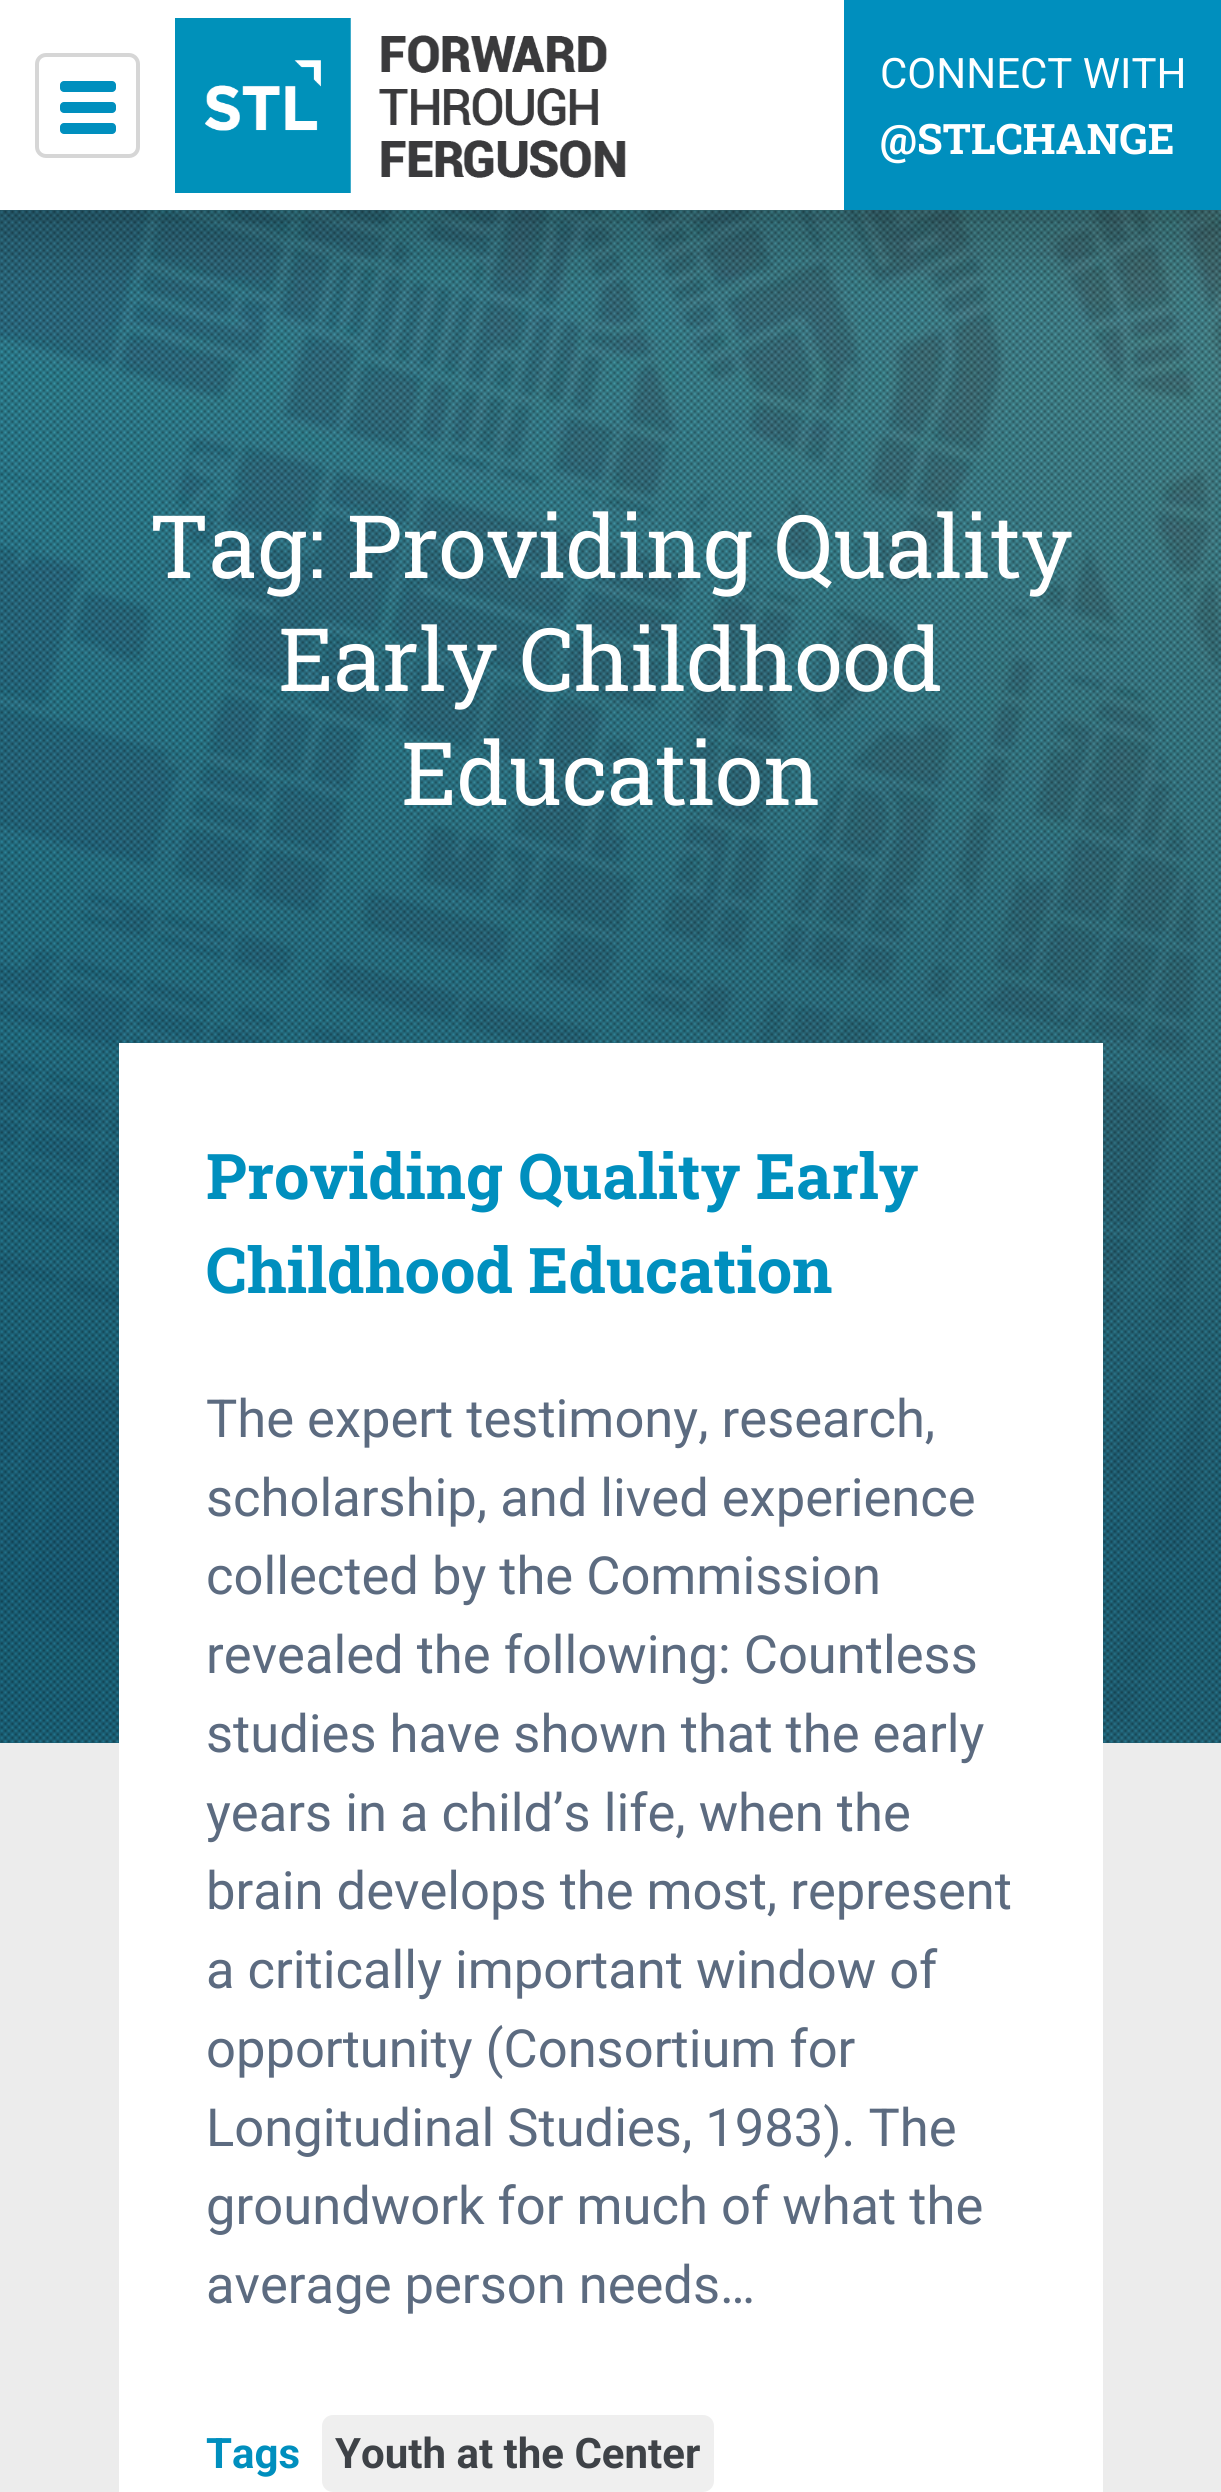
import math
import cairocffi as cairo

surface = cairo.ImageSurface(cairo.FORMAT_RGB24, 1221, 2492)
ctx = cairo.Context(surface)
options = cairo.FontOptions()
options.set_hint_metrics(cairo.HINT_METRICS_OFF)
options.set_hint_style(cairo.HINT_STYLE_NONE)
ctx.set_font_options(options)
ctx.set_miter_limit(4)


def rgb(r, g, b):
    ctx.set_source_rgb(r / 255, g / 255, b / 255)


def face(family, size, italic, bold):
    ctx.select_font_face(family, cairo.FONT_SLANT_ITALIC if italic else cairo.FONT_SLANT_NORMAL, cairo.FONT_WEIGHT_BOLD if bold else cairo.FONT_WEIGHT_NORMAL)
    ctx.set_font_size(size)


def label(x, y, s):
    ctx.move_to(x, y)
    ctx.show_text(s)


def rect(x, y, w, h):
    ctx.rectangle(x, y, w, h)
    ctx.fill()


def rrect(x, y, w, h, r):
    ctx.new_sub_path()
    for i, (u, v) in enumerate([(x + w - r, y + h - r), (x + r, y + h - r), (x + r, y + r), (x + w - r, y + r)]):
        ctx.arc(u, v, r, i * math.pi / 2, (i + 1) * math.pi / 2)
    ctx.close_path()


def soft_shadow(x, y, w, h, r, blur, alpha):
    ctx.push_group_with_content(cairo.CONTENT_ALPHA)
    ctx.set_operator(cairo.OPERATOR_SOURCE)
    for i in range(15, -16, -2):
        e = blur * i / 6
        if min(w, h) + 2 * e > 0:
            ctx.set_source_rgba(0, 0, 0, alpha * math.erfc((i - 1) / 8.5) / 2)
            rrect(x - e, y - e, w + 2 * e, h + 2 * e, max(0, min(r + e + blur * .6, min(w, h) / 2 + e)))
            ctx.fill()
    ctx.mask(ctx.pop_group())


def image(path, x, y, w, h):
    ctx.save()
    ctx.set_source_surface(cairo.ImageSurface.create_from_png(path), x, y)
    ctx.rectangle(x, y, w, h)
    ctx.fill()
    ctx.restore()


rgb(236, 236, 236)
ctx.paint()
image('image1.png', 0, 210, 1221, 1533)
image('image2.png', 0, 210, 1221, 1533)
rgb(0, 0, 0)
soft_shadow(-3, -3, 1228, 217, 0, 52.5, 0.4)
rgb(255, 255, 255)
rect(0, 0, 844, 210)
rrect(37, 55, 101, 101, 9)
rgb(214, 214, 214)
ctx.set_line_width(4)
ctx.stroke()
rgb(0, 143, 190)
rrect(60, 102, 56, 11, 4)
ctx.fill()
rrect(60, 81, 56, 11, 4)
ctx.fill()
rrect(60, 123, 56, 11, 4)
ctx.fill()
image('image0.png', 175, 18, 451, 175)
rect(844, 0, 377, 210)
face('Roboto', 42, 0, 0)
rgb(255, 255, 255)
label(880, 88, 'CONNECT WITH')
face('Roboto Slab', 42, 0, 1)
label(880, 154, '@STLCHANGE')
face('Roboto Slab', 87.5, 0, 0)
label(149, 578, 'Tag: Providing Quality')
label(278, 691, 'Early Childhood')
label(401, 805, 'Education')
rect(119, 1043, 984, 1449)
face('Roboto Slab', 63, 0, 1)
rgb(0, 143, 190)
label(206, 1199, 'Providing Quality Early')
label(206, 1293, 'Childhood Education')
face('Roboto', 52.5, 0, 0)
rgb(92, 107, 128)
label(206, 1437, 'The expert testimony, research,')
label(206, 1516, 'scholarship, and lived experience')
label(206, 1594, 'collected by the Commission')
label(206, 1673, 'revealed the following: Countless')
label(206, 1752, 'studies have shown that the early')
label(206, 1831, 'years in a child’s life, when the')
label(206, 1909, 'brain develops the most, represent')
label(206, 1988, 'a critically important window of')
label(206, 2067, 'opportunity (Consortium for')
label(206, 2146, 'Longitudinal Studies, 1983). The')
label(206, 2224, 'groundwork for much of what the')
label(206, 2303, 'average person needs…')
face('Roboto', 42, 0, 1)
rgb(0, 143, 190)
label(206, 2468, 'Tags')
rgb(239, 239, 239)
rrect(322, 2415, 392, 77, 11)
ctx.fill()
rgb(62, 66, 71)
label(335, 2468, 'Youth at the Center')
surface.write_to_png('render.png')
